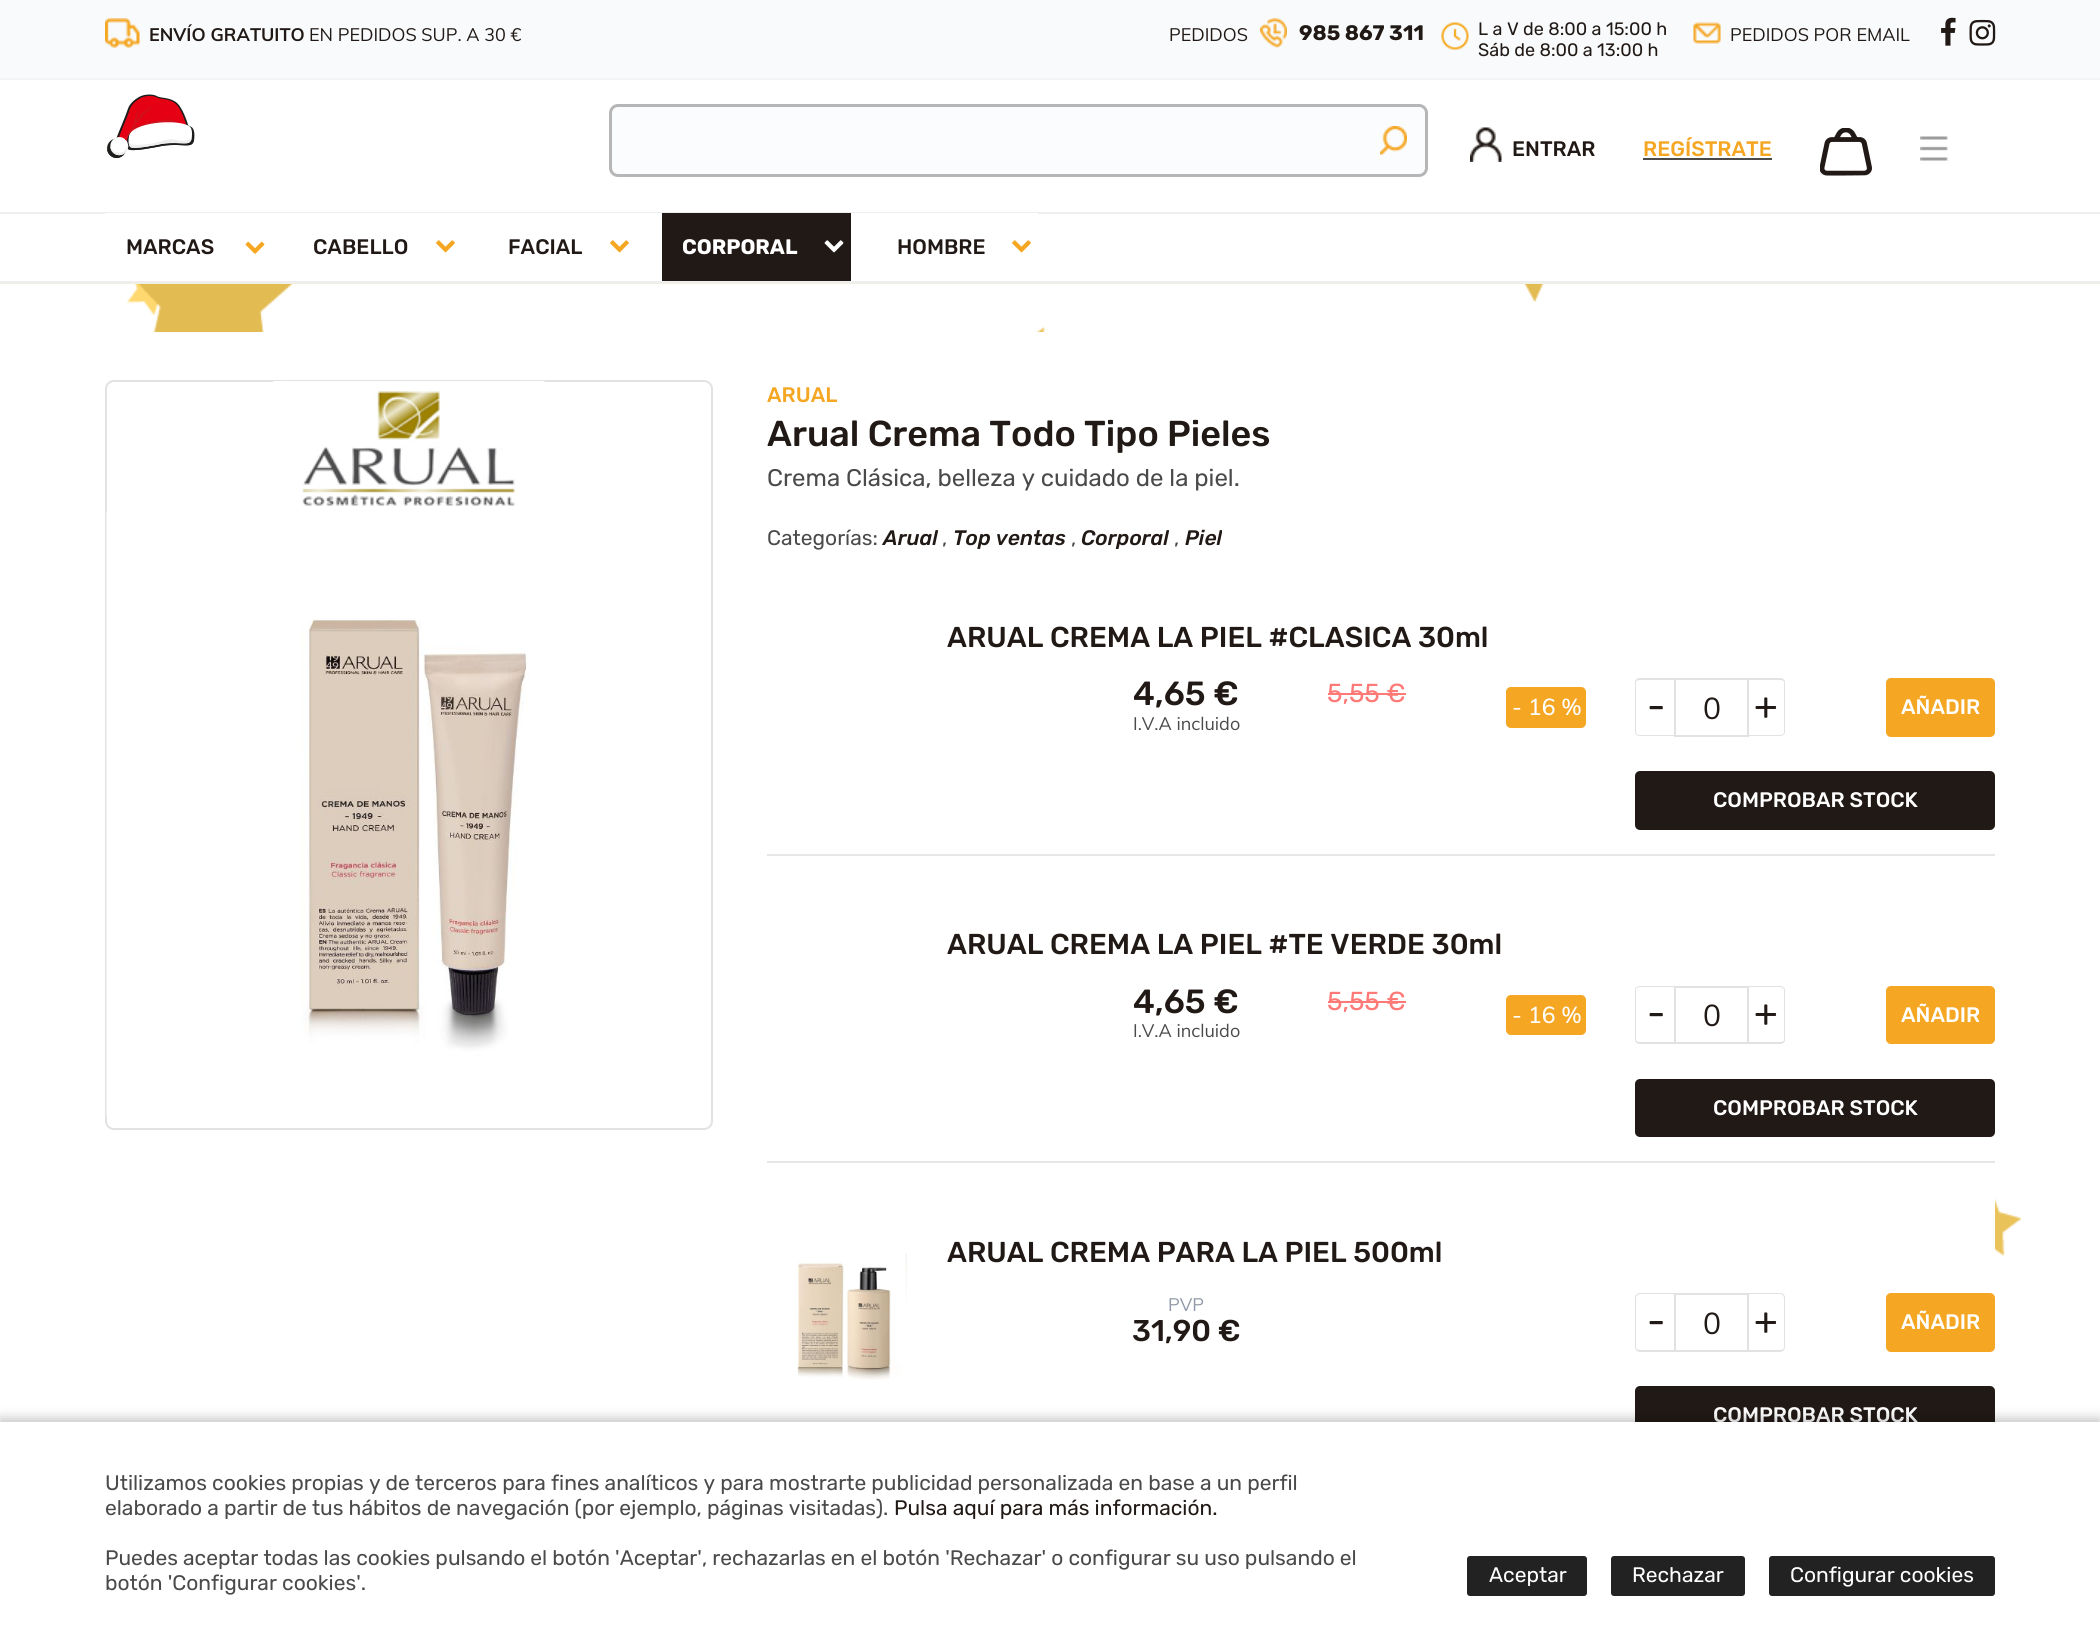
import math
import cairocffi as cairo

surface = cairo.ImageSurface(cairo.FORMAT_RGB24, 2100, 1644)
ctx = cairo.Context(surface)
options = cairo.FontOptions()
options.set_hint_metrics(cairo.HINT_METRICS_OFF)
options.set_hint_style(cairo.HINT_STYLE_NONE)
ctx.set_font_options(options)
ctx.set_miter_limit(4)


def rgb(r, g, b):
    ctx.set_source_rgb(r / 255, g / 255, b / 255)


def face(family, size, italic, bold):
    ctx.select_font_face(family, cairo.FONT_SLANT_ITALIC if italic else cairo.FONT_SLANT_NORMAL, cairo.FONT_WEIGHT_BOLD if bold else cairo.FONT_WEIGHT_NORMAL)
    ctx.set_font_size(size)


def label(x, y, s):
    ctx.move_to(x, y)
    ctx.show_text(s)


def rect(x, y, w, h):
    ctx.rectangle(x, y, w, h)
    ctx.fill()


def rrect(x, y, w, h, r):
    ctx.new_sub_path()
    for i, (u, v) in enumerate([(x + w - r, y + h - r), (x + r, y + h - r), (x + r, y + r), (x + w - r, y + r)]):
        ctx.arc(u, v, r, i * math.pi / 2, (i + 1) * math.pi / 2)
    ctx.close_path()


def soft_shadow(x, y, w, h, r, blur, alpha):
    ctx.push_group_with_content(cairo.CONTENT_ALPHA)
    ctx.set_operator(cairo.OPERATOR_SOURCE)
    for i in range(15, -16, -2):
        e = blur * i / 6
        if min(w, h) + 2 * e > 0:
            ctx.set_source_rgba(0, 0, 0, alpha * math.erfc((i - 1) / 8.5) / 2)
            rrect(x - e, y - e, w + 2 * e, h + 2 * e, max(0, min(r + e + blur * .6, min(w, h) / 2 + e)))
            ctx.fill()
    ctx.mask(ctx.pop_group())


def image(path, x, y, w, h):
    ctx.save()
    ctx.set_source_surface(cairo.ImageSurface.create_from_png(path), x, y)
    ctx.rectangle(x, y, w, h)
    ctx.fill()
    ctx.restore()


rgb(255, 255, 255)
ctx.paint()
image('image0.png', 127, 284, 1895, 972)
rgb(248, 250, 251)
rect(0, 0, 2100, 78)
rgb(243, 244, 244)
rect(0, 78, 2100, 2)
image('image1.png', 105, 18, 35, 30)
face('Muli', 18, 0, 1)
rgb(33, 25, 21)
label(149, 41, 'ENVÍO GRATUITO')
face('Muli', 18, 0, 0)
label(309, 41, 'EN PEDIDOS SUP. A 30 €')
label(1169, 41, 'PEDIDOS')
image('image2.png', 1260, 18, 27, 30)
face('Rubik', 21, 0, 1)
label(1299, 40, '985 867 311')
image('image3.png', 1441, 22, 28, 28)
face('Rubik', 18, 0, 0)
label(1478, 35, 'L a V de 8:00 a 15:00 h')
label(1478, 56, 'Sáb de 8:00 a 13:00 h')
image('image4.png', 1693, 22, 28, 22)
face('Muli', 18, 0, 0)
label(1730, 41, 'PEDIDOS POR EMAIL')
image('image5.png', 1941, 17, 15, 29)
image('image6.png', 1969, 19, 27, 27)
rgb(240, 240, 225)
rect(0, 283, 2100, 1)
image('image7.png', 107, 94, 88, 65)
rgb(250, 252, 253)
rrect(610.5, 105.5, 816, 70, 7.5)
ctx.fill_preserve()
rgb(182, 182, 182)
ctx.set_line_width(3)
ctx.stroke()
image('image8.png', 1380, 126, 27, 29)
image('image9.png', 1470, 127, 32, 35)
face('Rubik Medium', 21, 0, 0)
rgb(33, 25, 21)
label(1512, 156, 'ENTRAR')
rgb(245, 166, 35)
label(1643, 156, 'REGÍSTRATE')
rgb(74, 74, 74)
rect(1643, 158, 129, 2)
image('image10.png', 1820, 128, 52, 48)
image('image11.png', 1920, 136, 29, 25)
rgb(238, 238, 238)
rect(0, 212, 2100, 2)
rect(0, 281, 2100, 2)
rgb(255, 255, 255)
rect(105, 213, 933, 1)
rgb(33, 25, 21)
label(126, 254, 'MARCAS')
image('image12.png', 245, 241, 20, 13)
label(313, 254, 'CABELLO')
image('image13.png', 436, 240, 19, 13)
label(508, 254, 'FACIAL')
image('image13.png', 610, 240, 19, 13)
rect(662, 213, 189, 68)
face('Rubik', 21, 0, 1)
rgb(255, 255, 255)
label(682, 254, 'CORPORAL')
image('image14.png', 824, 240, 20, 13)
face('Rubik Medium', 21, 0, 0)
rgb(33, 25, 21)
label(897, 254, 'HOMBRE')
image('image13.png', 1012, 240, 19, 13)
rgb(255, 255, 255)
rect(137, 332, 1858, 924)
rrect(106, 381, 606, 748, 8)
rgb(226, 226, 226)
ctx.set_line_width(2)
ctx.stroke()
image('image15.png', 273, 381, 272, 125)
image('image16.png', 106, 511, 423, 605)
rgb(245, 166, 35)
label(767, 402, 'ARUAL')
face('Rubik Medium', 36, 0, 0)
rgb(33, 25, 21)
label(767, 446, 'Arual Crema Todo Tipo Pieles')
face('Rubik', 24, 0, 0)
rgb(74, 74, 74)
label(767, 486, 'Crema Clásica, belleza y cuidado de la piel.')
face('Rubik', 21, 0, 0)
label(767, 545, 'Categorías:')
face('Rubik Medium', 21, 1, 0)
rgb(33, 25, 21)
label(883, 545, 'Arual')
face('Rubik', 21, 0, 0)
rgb(74, 74, 74)
label(942, 545, ',')
face('Rubik Medium', 21, 1, 0)
rgb(33, 25, 21)
label(953, 545, 'Top ventas')
face('Rubik', 21, 0, 0)
rgb(74, 74, 74)
label(1071, 545, ',')
face('Rubik Medium', 21, 1, 0)
rgb(33, 25, 21)
label(1081, 545, 'Corporal')
face('Rubik', 21, 0, 0)
rgb(74, 74, 74)
label(1174, 545, ',')
face('Rubik Medium', 21, 1, 0)
rgb(33, 25, 21)
label(1185, 545, 'Piel')
rgb(231, 231, 231)
rect(767, 854, 1228, 2)
face('Rubik Medium', 28.75, 0, 0)
rgb(33, 25, 21)
label(947, 647, 'ARUAL CREMA LA PIEL #CLASICA 30ml')
face('Rubik Medium', 33.5, 0, 0)
label(1133, 705, '4,65 €')
face('Muli', 18, 0, 0)
rgb(74, 74, 74)
label(1133, 730, 'I.V.A incluido')
face('Rubik', 26, 0, 0)
rgb(255, 121, 119)
label(1327, 702, '5,55 €')
rect(1328, 693, 78, 2)
rgb(245, 166, 35)
rrect(1506, 687, 80, 41, 5)
ctx.fill()
face('Muli Medium', 23, 0, 0)
rgb(255, 255, 255)
label(1512, 715, '- 16 %')
rgb(226, 226, 226)
ctx.set_fill_rule(cairo.FILL_RULE_EVEN_ODD)
ctx.new_path()
ctx.move_to(1640, 678)
ctx.line_to(1674, 678)
ctx.line_to(1674, 736)
ctx.line_to(1640, 736)
ctx.curve_to(1637, 736, 1635, 734, 1635, 732)
ctx.line_to(1635, 682)
ctx.curve_to(1635, 680, 1637, 678, 1640, 678)
ctx.close_path()
ctx.move_to(1640, 680)
ctx.line_to(1674, 680)
ctx.line_to(1674, 735)
ctx.line_to(1640, 735)
ctx.curve_to(1638, 735, 1636, 734, 1636, 732)
ctx.line_to(1636, 682)
ctx.curve_to(1636, 681, 1638, 680, 1640, 680)
ctx.close_path()
ctx.fill()
face('Rubik', 38, 0, 0)
rgb(33, 25, 21)
label(1647, 719, '-')
ctx.rectangle(1675, 679, 73, 57)
rgb(226, 226, 226)
ctx.stroke()
face('Muli', 30, 0, 0)
rgb(33, 25, 21)
label(1703, 719, '0')
rgb(226, 226, 226)
ctx.new_path()
ctx.move_to(1746, 678)
ctx.line_to(1780, 678)
ctx.curve_to(1783, 678, 1785, 680, 1785, 682)
ctx.line_to(1785, 732)
ctx.curve_to(1785, 734, 1783, 736, 1780, 736)
ctx.line_to(1746, 736)
ctx.close_path()
ctx.move_to(1746, 680)
ctx.line_to(1780, 680)
ctx.curve_to(1782, 680, 1784, 681, 1784, 682)
ctx.line_to(1784, 732)
ctx.curve_to(1784, 734, 1782, 735, 1780, 735)
ctx.line_to(1746, 735)
ctx.close_path()
ctx.fill()
face('Rubik', 38, 0, 0)
rgb(33, 25, 21)
label(1754, 719, '+')
rgb(245, 166, 35)
rrect(1886, 678, 109, 59, 5)
ctx.fill()
face('Rubik Medium', 21, 0, 0)
rgb(255, 255, 255)
label(1901, 714, 'AÑADIR')
rgb(33, 25, 21)
rrect(1635, 771, 360, 59, 5)
ctx.fill()
rgb(255, 255, 255)
label(1713, 807, 'COMPROBAR STOCK')
rgb(231, 231, 231)
rect(767, 1161, 1228, 2)
face('Rubik Medium', 28.75, 0, 0)
rgb(33, 25, 21)
label(947, 954, 'ARUAL CREMA LA PIEL #TE VERDE 30ml')
face('Rubik Medium', 33.5, 0, 0)
label(1133, 1013, '4,65 €')
face('Muli', 18, 0, 0)
rgb(74, 74, 74)
label(1133, 1037, 'I.V.A incluido')
face('Rubik', 26, 0, 0)
rgb(255, 121, 119)
label(1327, 1010, '5,55 €')
rect(1328, 1001, 78, 2)
rgb(245, 166, 35)
rrect(1506, 995, 80, 40, 5)
ctx.fill()
face('Muli Medium', 23, 0, 0)
rgb(255, 255, 255)
label(1512, 1023, '- 16 %')
rgb(226, 226, 226)
ctx.new_path()
ctx.move_to(1640, 986)
ctx.line_to(1674, 986)
ctx.line_to(1674, 1044)
ctx.line_to(1640, 1044)
ctx.curve_to(1637, 1044, 1635, 1042, 1635, 1040)
ctx.line_to(1635, 990)
ctx.curve_to(1635, 988, 1637, 986, 1640, 986)
ctx.close_path()
ctx.move_to(1640, 987)
ctx.line_to(1674, 987)
ctx.line_to(1674, 1042)
ctx.line_to(1640, 1042)
ctx.curve_to(1638, 1042, 1636, 1041, 1636, 1040)
ctx.line_to(1636, 990)
ctx.curve_to(1636, 988, 1638, 987, 1640, 987)
ctx.close_path()
ctx.fill()
face('Rubik', 38, 0, 0)
rgb(33, 25, 21)
label(1647, 1026, '-')
ctx.rectangle(1675, 987, 73, 56)
rgb(226, 226, 226)
ctx.stroke()
face('Muli', 30, 0, 0)
rgb(33, 25, 21)
label(1703, 1026, '0')
rgb(226, 226, 226)
ctx.new_path()
ctx.move_to(1746, 986)
ctx.line_to(1780, 986)
ctx.curve_to(1783, 986, 1785, 988, 1785, 990)
ctx.line_to(1785, 1040)
ctx.curve_to(1785, 1042, 1783, 1044, 1780, 1044)
ctx.line_to(1746, 1044)
ctx.close_path()
ctx.move_to(1746, 987)
ctx.line_to(1780, 987)
ctx.curve_to(1782, 987, 1784, 988, 1784, 990)
ctx.line_to(1784, 1040)
ctx.curve_to(1784, 1041, 1782, 1042, 1780, 1042)
ctx.line_to(1746, 1042)
ctx.close_path()
ctx.fill()
face('Rubik', 38, 0, 0)
rgb(33, 25, 21)
label(1754, 1026, '+')
rgb(245, 166, 35)
rrect(1886, 986, 109, 58, 5)
ctx.fill()
face('Rubik Medium', 21, 0, 0)
rgb(255, 255, 255)
label(1901, 1022, 'AÑADIR')
rgb(33, 25, 21)
rrect(1635, 1079, 360, 58, 5)
ctx.fill()
rgb(255, 255, 255)
label(1713, 1115, 'COMPROBAR STOCK')
image('image17.png', 797, 1253, 110, 127)
face('Rubik Medium', 28.75, 0, 0)
rgb(33, 25, 21)
label(947, 1262, 'ARUAL CREMA PARA LA PIEL 500ml')
face('Muli', 18, 0, 0)
rgb(144, 153, 167)
label(1168, 1311, 'PVP')
face('Rubik Medium', 30, 0, 0)
rgb(33, 25, 21)
label(1132, 1341, '31,90 €')
rgb(226, 226, 226)
ctx.new_path()
ctx.move_to(1640, 1293)
ctx.line_to(1674, 1293)
ctx.line_to(1674, 1352)
ctx.line_to(1640, 1352)
ctx.curve_to(1637, 1352, 1635, 1349, 1635, 1347)
ctx.line_to(1635, 1298)
ctx.curve_to(1635, 1295, 1637, 1293, 1640, 1293)
ctx.close_path()
ctx.move_to(1640, 1294)
ctx.line_to(1674, 1294)
ctx.line_to(1674, 1350)
ctx.line_to(1640, 1350)
ctx.curve_to(1638, 1350, 1636, 1349, 1636, 1347)
ctx.line_to(1636, 1298)
ctx.curve_to(1636, 1296, 1638, 1294, 1640, 1294)
ctx.close_path()
ctx.fill()
face('Rubik', 38, 0, 0)
rgb(33, 25, 21)
label(1647, 1334, '-')
ctx.rectangle(1675, 1294, 73, 57)
rgb(226, 226, 226)
ctx.stroke()
face('Muli', 30, 0, 0)
rgb(33, 25, 21)
label(1703, 1334, '0')
rgb(226, 226, 226)
ctx.new_path()
ctx.move_to(1746, 1293)
ctx.line_to(1780, 1293)
ctx.curve_to(1783, 1293, 1785, 1295, 1785, 1298)
ctx.line_to(1785, 1347)
ctx.curve_to(1785, 1349, 1783, 1352, 1780, 1352)
ctx.line_to(1746, 1352)
ctx.close_path()
ctx.move_to(1746, 1294)
ctx.line_to(1780, 1294)
ctx.curve_to(1782, 1294, 1784, 1296, 1784, 1298)
ctx.line_to(1784, 1347)
ctx.curve_to(1784, 1349, 1782, 1350, 1780, 1350)
ctx.line_to(1746, 1350)
ctx.close_path()
ctx.fill()
face('Rubik', 38, 0, 0)
rgb(33, 25, 21)
label(1754, 1334, '+')
rgb(245, 166, 35)
rrect(1886, 1293, 109, 59, 5)
ctx.fill()
face('Rubik Medium', 21, 0, 0)
rgb(255, 255, 255)
label(1901, 1329, 'AÑADIR')
rgb(33, 25, 21)
rrect(1635, 1386, 360, 59, 5)
ctx.fill()
rgb(255, 255, 255)
label(1713, 1422, 'COMPROBAR STOCK')
rgb(0, 0, 0)
soft_shadow(0, 1419, 2100, 222, 0, 6, 0.25)
rgb(255, 255, 255)
rect(0, 1422, 2100, 222)
face('Rubik', 21, 0, 0)
rgb(74, 74, 74)
label(105, 1490, 'Utilizamos cookies propias y de terceros para fines analíticos y para mostrarte publicidad personalizada en base a un perfil')
label(105, 1515, 'elaborado a partir de tus hábitos de navegación (por ejemplo, páginas visitadas).')
rgb(33, 25, 21)
label(894, 1515, 'Pulsa aquí para más información.')
rgb(74, 74, 74)
label(105, 1565, 'Puedes aceptar todas las cookies pulsando el botón \'Aceptar\', rechazarlas en el botón \'Rechazar\' o configurar su uso pulsando el')
label(105, 1590, 'botón \'Configurar cookies\'.')
rgb(34, 34, 34)
rrect(1467, 1556, 120, 40, 3)
ctx.fill()
rgb(255, 255, 255)
label(1489, 1582, 'Aceptar')
rgb(34, 34, 34)
rrect(1611, 1556, 134, 40, 3)
ctx.fill()
rgb(255, 255, 255)
label(1632, 1582, 'Rechazar')
rgb(34, 34, 34)
rrect(1769, 1556, 226, 40, 3)
ctx.fill()
rgb(255, 255, 255)
label(1790, 1582, 'Configurar cookies')
surface.write_to_png('render.png')
